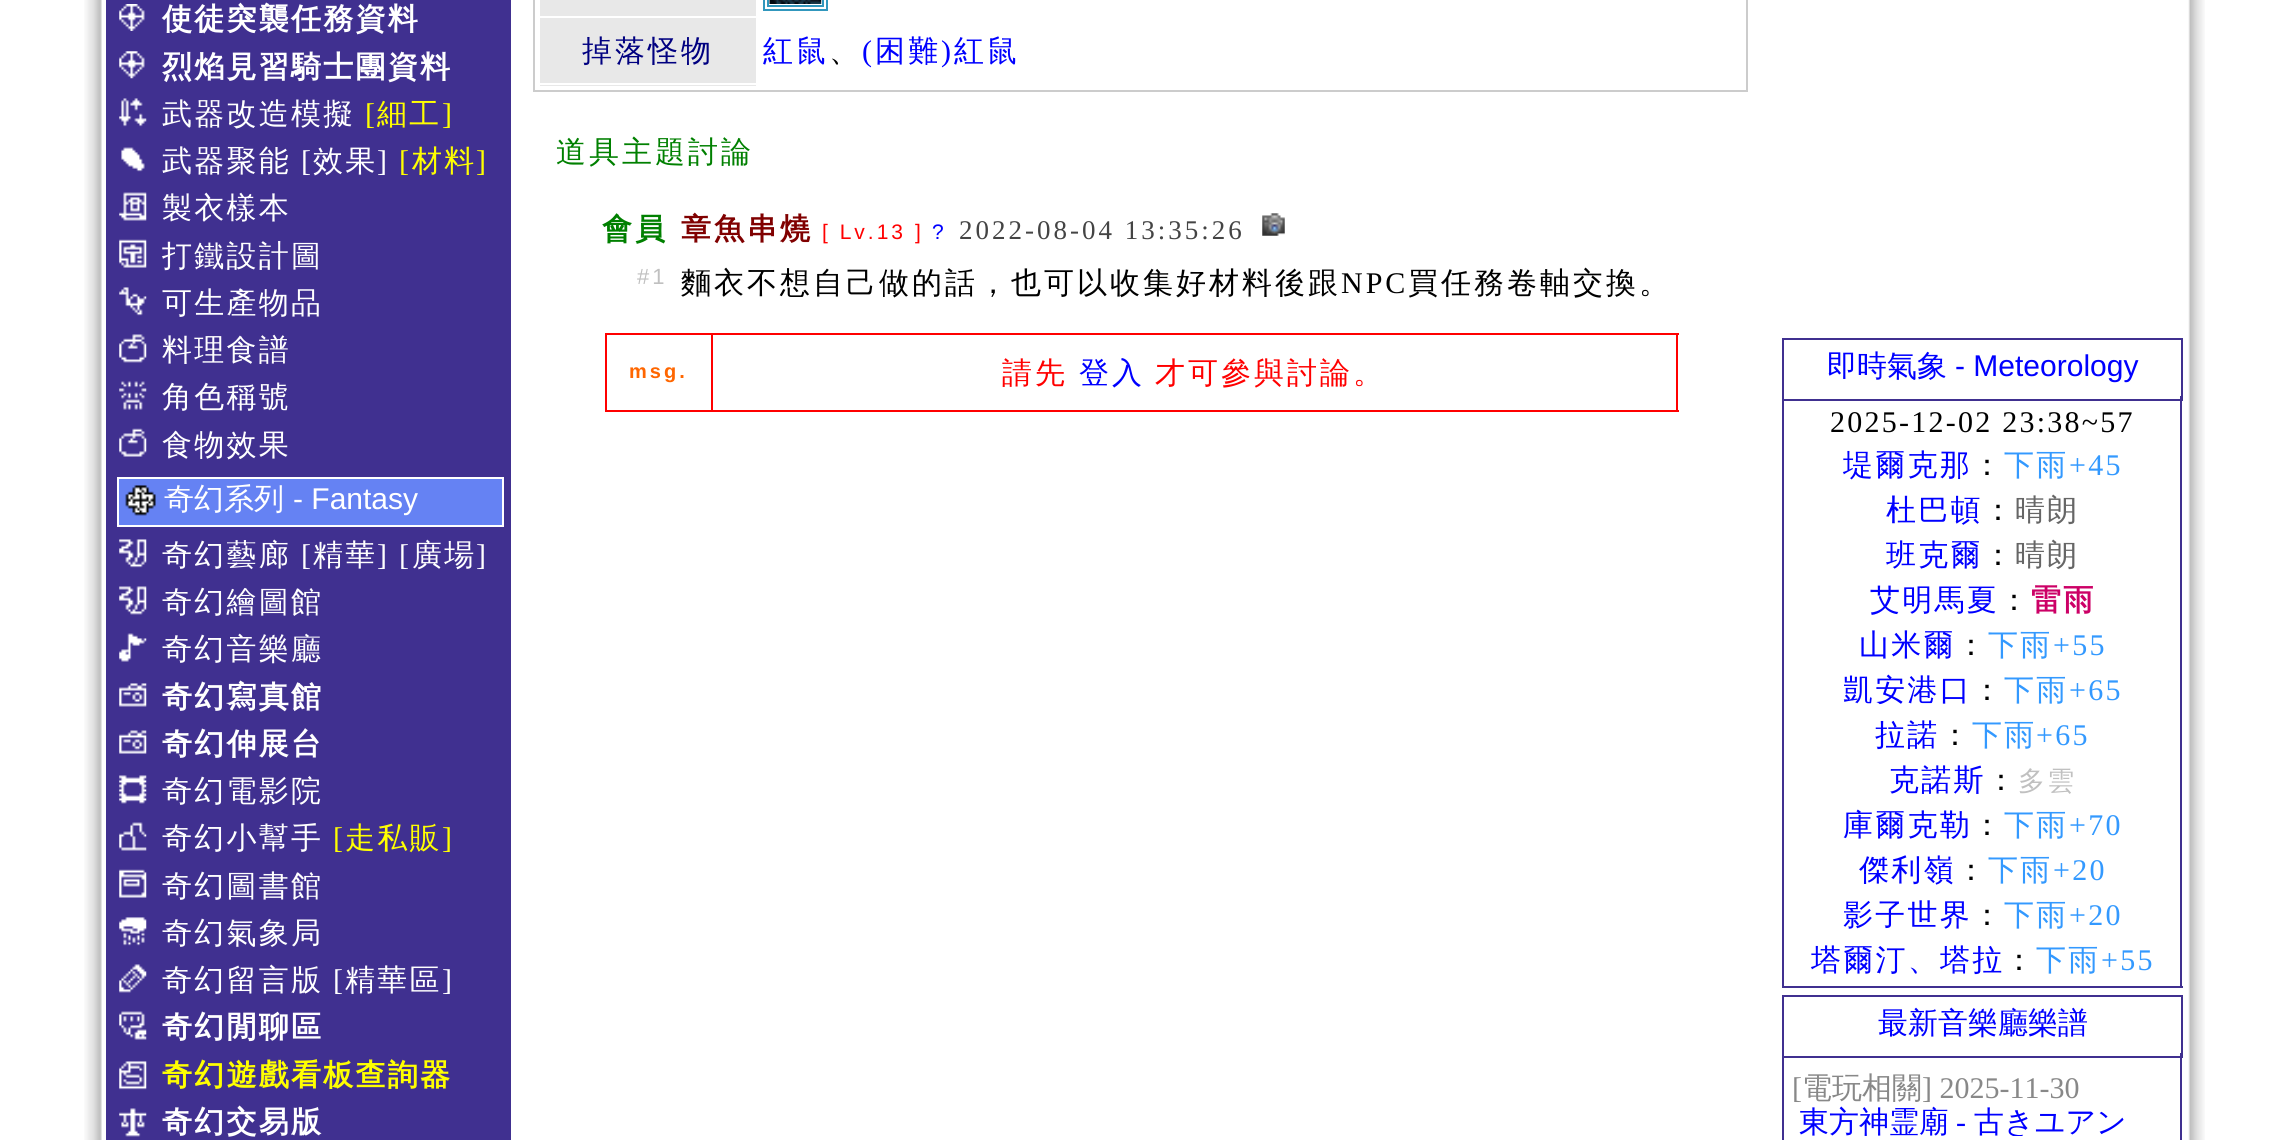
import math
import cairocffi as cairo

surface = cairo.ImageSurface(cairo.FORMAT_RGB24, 2290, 1140)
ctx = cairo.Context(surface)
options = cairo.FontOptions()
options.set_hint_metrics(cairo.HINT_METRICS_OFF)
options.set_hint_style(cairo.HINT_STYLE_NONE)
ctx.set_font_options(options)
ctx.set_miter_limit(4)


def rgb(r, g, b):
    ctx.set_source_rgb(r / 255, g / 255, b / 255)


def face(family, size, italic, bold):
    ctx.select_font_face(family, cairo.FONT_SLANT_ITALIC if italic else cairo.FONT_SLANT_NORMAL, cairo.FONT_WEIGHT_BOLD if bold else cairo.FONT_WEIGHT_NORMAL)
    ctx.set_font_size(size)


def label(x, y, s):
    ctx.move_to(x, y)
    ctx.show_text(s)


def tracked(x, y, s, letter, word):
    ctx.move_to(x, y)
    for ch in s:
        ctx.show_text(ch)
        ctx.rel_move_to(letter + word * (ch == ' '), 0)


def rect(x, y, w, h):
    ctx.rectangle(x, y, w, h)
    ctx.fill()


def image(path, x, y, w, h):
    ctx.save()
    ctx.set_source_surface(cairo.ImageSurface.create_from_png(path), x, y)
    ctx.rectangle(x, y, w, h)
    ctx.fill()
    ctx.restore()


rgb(255, 255, 255)
ctx.paint()
image('image0.png', 84, 0, 2121, 1140)
rgb(64, 48, 144)
rect(106, 0, 405, 1140)
image('image1.png', 119, 4, 26, 27)
face('WenQuanYi Zen Hei', 30, 0, 1)
rgb(255, 255, 255)
tracked(162, 29, '使徒突襲任務資料', 2.25, 0)
image('image2.png', 119, 51, 26, 28)
tracked(162, 77, '烈焰見習騎士團資料', 2.25, 0)
image('image3.png', 119, 98, 28, 29)
face('WenQuanYi Zen Hei Medium', 30, 0, 0)
tracked(162, 124, '武器改造模擬', 2.25, 0)
face('Liberation Serif', 30, 0, 0)
rgb(255, 255, 0)
tracked(365, 124, '[', 2.25, 0)
face('WenQuanYi Zen Hei Medium', 30, 0, 0)
tracked(377, 124, '細工', 2.25, 0)
face('Liberation Serif', 30, 0, 0)
tracked(442, 124, ']', 2.25, 0)
image('image4.png', 121, 147, 24, 25)
face('WenQuanYi Zen Hei Medium', 30, 0, 0)
rgb(255, 255, 255)
tracked(162, 171, '武器聚能', 2.25, 0)
face('Liberation Serif', 30, 0, 0)
tracked(301, 171, '[', 2.25, 0)
face('WenQuanYi Zen Hei Medium', 30, 0, 0)
tracked(313, 171, '效果', 2.25, 0)
face('Liberation Serif', 30, 0, 0)
tracked(377, 171, ']', 2.25, 0)
rgb(255, 255, 0)
tracked(399, 171, '[', 2.25, 0)
face('WenQuanYi Zen Hei Medium', 30, 0, 0)
tracked(412, 171, '材料', 2.25, 0)
face('Liberation Serif', 30, 0, 0)
tracked(476, 171, ']', 2.25, 0)
image('image5.png', 119, 192, 28, 29)
face('WenQuanYi Zen Hei Medium', 30, 0, 0)
rgb(255, 255, 255)
tracked(162, 218, '製衣樣本', 2.25, 0)
image('image6.png', 119, 239, 28, 29)
tracked(162, 266, '打鐵設計圖', 2.25, 0)
image('image7.png', 119, 287, 28, 29)
tracked(162, 313, '可生產物品', 2.25, 0)
image('image8.png', 119, 334, 28, 29)
tracked(162, 360, '料理食譜', 2.25, 0)
image('image9.png', 119, 381, 28, 29)
tracked(162, 407, '角色稱號', 2.25, 0)
image('image10.png', 119, 428, 28, 29)
tracked(162, 455, '食物效果', 2.25, 0)
rgb(101, 130, 243)
rect(119, 479, 383, 46)
image('image11.png', 125, 485, 31, 31)
ctx.rectangle(118, 478, 385, 48)
rgb(255, 255, 255)
ctx.stroke()
label(164, 509, '奇幻系列')
face('Liberation Sans', 30, 0, 0)
label(293, 509, '- Fantasy')
image('image12.png', 119, 539, 28, 29)
face('WenQuanYi Zen Hei Medium', 30, 0, 0)
tracked(162, 565, '奇幻藝廊', 2.25, 0)
face('Liberation Serif', 30, 0, 0)
tracked(301, 565, '[', 2.25, 0)
face('WenQuanYi Zen Hei Medium', 30, 0, 0)
tracked(313, 565, '精華', 2.25, 0)
face('Liberation Serif', 30, 0, 0)
tracked(377, 565, '] [', 2.25, 0)
face('WenQuanYi Zen Hei Medium', 30, 0, 0)
tracked(412, 565, '廣場', 2.25, 0)
face('Liberation Serif', 30, 0, 0)
tracked(476, 565, ']', 2.25, 0)
image('image13.png', 119, 586, 28, 29)
face('WenQuanYi Zen Hei Medium', 30, 0, 0)
tracked(162, 612, '奇幻繪圖館', 2.25, 0)
image('image14.png', 119, 633, 28, 29)
tracked(162, 659, '奇幻音樂廳', 2.25, 0)
image('image15.png', 119, 683, 28, 24)
face('WenQuanYi Zen Hei', 30, 0, 1)
tracked(162, 707, '奇幻寫真館', 2.25, 0)
image('image16.png', 119, 730, 28, 24)
tracked(162, 754, '奇幻伸展台', 2.25, 0)
image('image17.png', 119, 775, 28, 29)
face('WenQuanYi Zen Hei Medium', 30, 0, 0)
tracked(162, 801, '奇幻電影院', 2.25, 0)
image('image18.png', 119, 822, 28, 29)
tracked(162, 848, '奇幻小幫手', 2.25, 0)
face('Liberation Serif', 30, 0, 0)
rgb(255, 255, 0)
tracked(333, 848, '[', 2.25, 0)
face('WenQuanYi Zen Hei Medium', 30, 0, 0)
tracked(345, 848, '走私販', 2.25, 0)
face('Liberation Serif', 30, 0, 0)
tracked(442, 848, ']', 2.25, 0)
image('image19.png', 119, 869, 28, 29)
face('WenQuanYi Zen Hei Medium', 30, 0, 0)
rgb(255, 255, 255)
tracked(162, 896, '奇幻圖書館', 2.25, 0)
image('image20.png', 119, 917, 28, 29)
tracked(162, 943, '奇幻氣象局', 2.25, 0)
image('image21.png', 119, 964, 28, 29)
tracked(162, 990, '奇幻留言版', 2.25, 0)
face('Liberation Serif', 30, 0, 0)
tracked(333, 990, '[', 2.25, 0)
face('WenQuanYi Zen Hei Medium', 30, 0, 0)
tracked(345, 990, '精華區', 2.25, 0)
face('Liberation Serif', 30, 0, 0)
tracked(442, 990, ']', 2.25, 0)
image('image22.png', 119, 1011, 28, 29)
face('WenQuanYi Zen Hei', 30, 0, 1)
tracked(162, 1037, '奇幻閒聊區', 2.25, 0)
image('image23.png', 119, 1061, 28, 29)
rgb(255, 255, 0)
tracked(162, 1085, '奇幻遊戲看板查詢器', 2.25, 0)
image('image24.png', 119, 1108, 28, 29)
rgb(255, 255, 255)
tracked(162, 1132, '奇幻交易版', 2.25, 0)
rgb(204, 204, 204)
rect(1746, 0, 2, 92)
rect(533, 90, 1215, 2)
rect(533, 0, 2, 92)
rgb(232, 232, 232)
rect(540, 0, 216, 16)
ctx.rectangle(764, -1, 63, 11)
rgb(49, 151, 189)
ctx.stroke()
ctx.rectangle(768, -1, 55, 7)
ctx.stroke()
image('image25.png', 769, 0, 53, 4)
rgb(232, 232, 232)
rect(540, 18, 216, 68)
rgb(255, 255, 255)
rect(540, 83, 218, 2)
face('WenQuanYi Zen Hei Medium', 30, 0, 0)
rgb(0, 0, 128)
tracked(582, 61, '掉落怪物', 3, 0)
rgb(0, 0, 255)
tracked(763, 61, '紅鼠', 3, 0)
rgb(0, 0, 0)
tracked(829, 61, '、', 3, 0)
face('Liberation Serif', 30, 0, 0)
rgb(0, 0, 255)
tracked(862, 61, '(', 3, 0)
face('WenQuanYi Zen Hei Medium', 30, 0, 0)
tracked(875, 61, '困難', 3, 0)
face('Liberation Serif', 30, 0, 0)
tracked(941, 61, ')', 3, 0)
face('WenQuanYi Zen Hei Medium', 30, 0, 0)
tracked(954, 61, '紅鼠', 3, 0)
rgb(0, 128, 0)
tracked(556, 162, '道具主題討論', 3, 0)
face('WenQuanYi Zen Hei', 30, 0, 1)
tracked(602, 239, '會員', 3, 0)
rgb(128, 0, 0)
tracked(681, 239, '章魚串燒', 3, 0)
face('Liberation Sans', 21, 0, 0)
rgb(255, 0, 0)
tracked(822, 239, '[ Lv.13 ]', 3, 0)
rgb(0, 0, 255)
tracked(932, 239, '?', 3, 0)
face('Liberation Serif', 27, 0, 0)
rgb(68, 68, 68)
tracked(959, 239, '2022-08-04 13:35:26', 3, 0)
image('image26.png', 1262, 213, 23, 23)
face('Liberation Sans', 22, 0, 0)
rgb(192, 192, 192)
tracked(637, 284, '#1', 3, 0)
face('WenQuanYi Zen Hei Medium', 30, 0, 0)
rgb(0, 0, 0)
tracked(681, 293, '麵衣不想自己做的話，也可以收集好材料後跟', 3, 0)
face('Liberation Serif', 30, 0, 0)
tracked(1341, 293, 'NPC', 3, 0)
face('WenQuanYi Zen Hei Medium', 30, 0, 0)
tracked(1408, 293, '買任務卷軸交換。', 3, 0)
rgb(255, 0, 0)
rect(605, 333, 1074, 2)
rect(1676, 333, 2, 79)
rect(605, 410, 1074, 2)
rect(605, 333, 2, 79)
face('Liberation Sans', 20, 0, 1)
rgb(255, 102, 0)
tracked(629, 378, 'msg.', 3, 0)
rgb(255, 0, 0)
rect(711, 333, 2, 79)
face('WenQuanYi Zen Hei Medium', 30, 0, 0)
tracked(1002, 383, '請先', 3, 0)
rgb(0, 0, 255)
tracked(1079, 383, '登入', 3, 0)
rgb(255, 0, 0)
tracked(1155, 383, '才可參與討論。', 3, 0)
ctx.rectangle(1783, 339, 399, 61)
rgb(64, 48, 144)
ctx.stroke()
rgb(0, 0, 255)
label(1827, 376, '即時氣象')
face('Liberation Sans', 30, 0, 0)
label(1955, 376, '- Meteorology')
rgb(64, 48, 144)
rect(2180, 396, 2, 592)
rect(1782, 986, 401, 2)
rect(1782, 396, 2, 592)
face('Liberation Serif', 30, 0, 0)
rgb(0, 0, 0)
tracked(1830, 432, '2025-12-02 23:38~57', 2.25, 0)
face('WenQuanYi Zen Hei Medium', 30, 0, 0)
rgb(0, 0, 255)
tracked(1843, 475, '堤爾克那', 2.25, 0)
rgb(0, 0, 0)
tracked(1972, 475, '：', 2.25, 0)
rgb(51, 153, 255)
tracked(2004, 475, '下雨', 2.25, 0)
face('Liberation Serif', 30, 0, 0)
tracked(2069, 475, '+45', 2.25, 0)
face('WenQuanYi Zen Hei Medium', 30, 0, 0)
rgb(0, 0, 255)
tracked(1886, 520, '杜巴頓', 2.25, 0)
rgb(0, 0, 0)
tracked(1983, 520, '：', 2.25, 0)
rgb(102, 102, 102)
tracked(2015, 520, '晴朗', 2.25, 0)
rgb(0, 0, 255)
tracked(1886, 565, '班克爾', 2.25, 0)
rgb(0, 0, 0)
tracked(1983, 565, '：', 2.25, 0)
rgb(102, 102, 102)
tracked(2015, 565, '晴朗', 2.25, 0)
rgb(0, 0, 255)
tracked(1870, 610, '艾明馬夏', 2.25, 0)
rgb(0, 0, 0)
tracked(1999, 610, '：', 2.25, 0)
face('WenQuanYi Zen Hei', 30, 0, 1)
rgb(204, 0, 102)
tracked(2031, 610, '雷雨', 2.25, 0)
face('WenQuanYi Zen Hei Medium', 30, 0, 0)
rgb(0, 0, 255)
tracked(1859, 655, '山米爾', 2.25, 0)
rgb(0, 0, 0)
tracked(1956, 655, '：', 2.25, 0)
rgb(51, 153, 255)
tracked(1988, 655, '下雨', 2.25, 0)
face('Liberation Serif', 30, 0, 0)
tracked(2053, 655, '+55', 2.25, 0)
face('WenQuanYi Zen Hei Medium', 30, 0, 0)
rgb(0, 0, 255)
tracked(1843, 700, '凱安港口', 2.25, 0)
rgb(0, 0, 0)
tracked(1972, 700, '：', 2.25, 0)
rgb(51, 153, 255)
tracked(2004, 700, '下雨', 2.25, 0)
face('Liberation Serif', 30, 0, 0)
tracked(2069, 700, '+65', 2.25, 0)
face('WenQuanYi Zen Hei Medium', 30, 0, 0)
rgb(0, 0, 255)
tracked(1875, 745, '拉諾', 2.25, 0)
rgb(0, 0, 0)
tracked(1940, 745, '：', 2.25, 0)
rgb(51, 153, 255)
tracked(1972, 745, '下雨', 2.25, 0)
face('Liberation Serif', 30, 0, 0)
tracked(2036, 745, '+65', 2.25, 0)
face('WenQuanYi Zen Hei Medium', 30, 0, 0)
rgb(0, 0, 255)
tracked(1889, 790, '克諾斯', 2.25, 0)
rgb(0, 0, 0)
tracked(1986, 790, '：', 2.25, 0)
face('WenQuanYi Zen Hei Medium', 27, 0, 0)
rgb(192, 192, 192)
tracked(2018, 790, '多雲', 2.25, 0)
face('WenQuanYi Zen Hei Medium', 30, 0, 0)
rgb(0, 0, 255)
tracked(1843, 835, '庫爾克勒', 2.25, 0)
rgb(0, 0, 0)
tracked(1972, 835, '：', 2.25, 0)
rgb(51, 153, 255)
tracked(2004, 835, '下雨', 2.25, 0)
face('Liberation Serif', 30, 0, 0)
tracked(2069, 835, '+70', 2.25, 0)
face('WenQuanYi Zen Hei Medium', 30, 0, 0)
rgb(0, 0, 255)
tracked(1859, 880, '傑利嶺', 2.25, 0)
rgb(0, 0, 0)
tracked(1956, 880, '：', 2.25, 0)
rgb(51, 153, 255)
tracked(1988, 880, '下雨', 2.25, 0)
face('Liberation Serif', 30, 0, 0)
tracked(2053, 880, '+20', 2.25, 0)
face('WenQuanYi Zen Hei Medium', 30, 0, 0)
rgb(0, 0, 255)
tracked(1843, 925, '影子世界', 2.25, 0)
rgb(0, 0, 0)
tracked(1972, 925, '：', 2.25, 0)
rgb(51, 153, 255)
tracked(2004, 925, '下雨', 2.25, 0)
face('Liberation Serif', 30, 0, 0)
tracked(2069, 925, '+20', 2.25, 0)
face('WenQuanYi Zen Hei Medium', 30, 0, 0)
rgb(0, 0, 255)
tracked(1811, 970, '塔爾汀、塔拉', 2.25, 0)
rgb(0, 0, 0)
tracked(2004, 970, '：', 2.25, 0)
rgb(51, 153, 255)
tracked(2036, 970, '下雨', 2.25, 0)
face('Liberation Serif', 30, 0, 0)
tracked(2101, 970, '+55', 2.25, 0)
ctx.rectangle(1783, 996, 399, 61)
rgb(64, 48, 144)
ctx.stroke()
face('WenQuanYi Zen Hei Medium', 30, 0, 0)
rgb(0, 0, 255)
label(1878, 1033, '最新音樂廳樂譜')
rgb(64, 48, 144)
rect(2180, 1053, 2, 87)
rect(1782, 1053, 2, 87)
face('Liberation Serif', 30, 0, 0)
rgb(136, 136, 136)
label(1792, 1098, '[')
face('WenQuanYi Zen Hei Medium', 30, 0, 0)
label(1802, 1098, '電玩相關')
face('Liberation Serif', 30, 0, 0)
label(1922, 1098, '] 2025-11-30')
face('WenQuanYi Zen Hei Medium', 30, 0, 0)
rgb(0, 0, 255)
label(1799, 1132, '東方神霊廟')
face('Liberation Serif', 30, 0, 0)
label(1956, 1132, '-')
ctx.save()
ctx.rectangle(1791, 1103, 349, 33)
ctx.clip()
face('WenQuanYi Zen Hei Medium', 30, 0, 0)
label(1974, 1132, '古きユアン')
ctx.restore()
surface.write_to_png('render.png')
